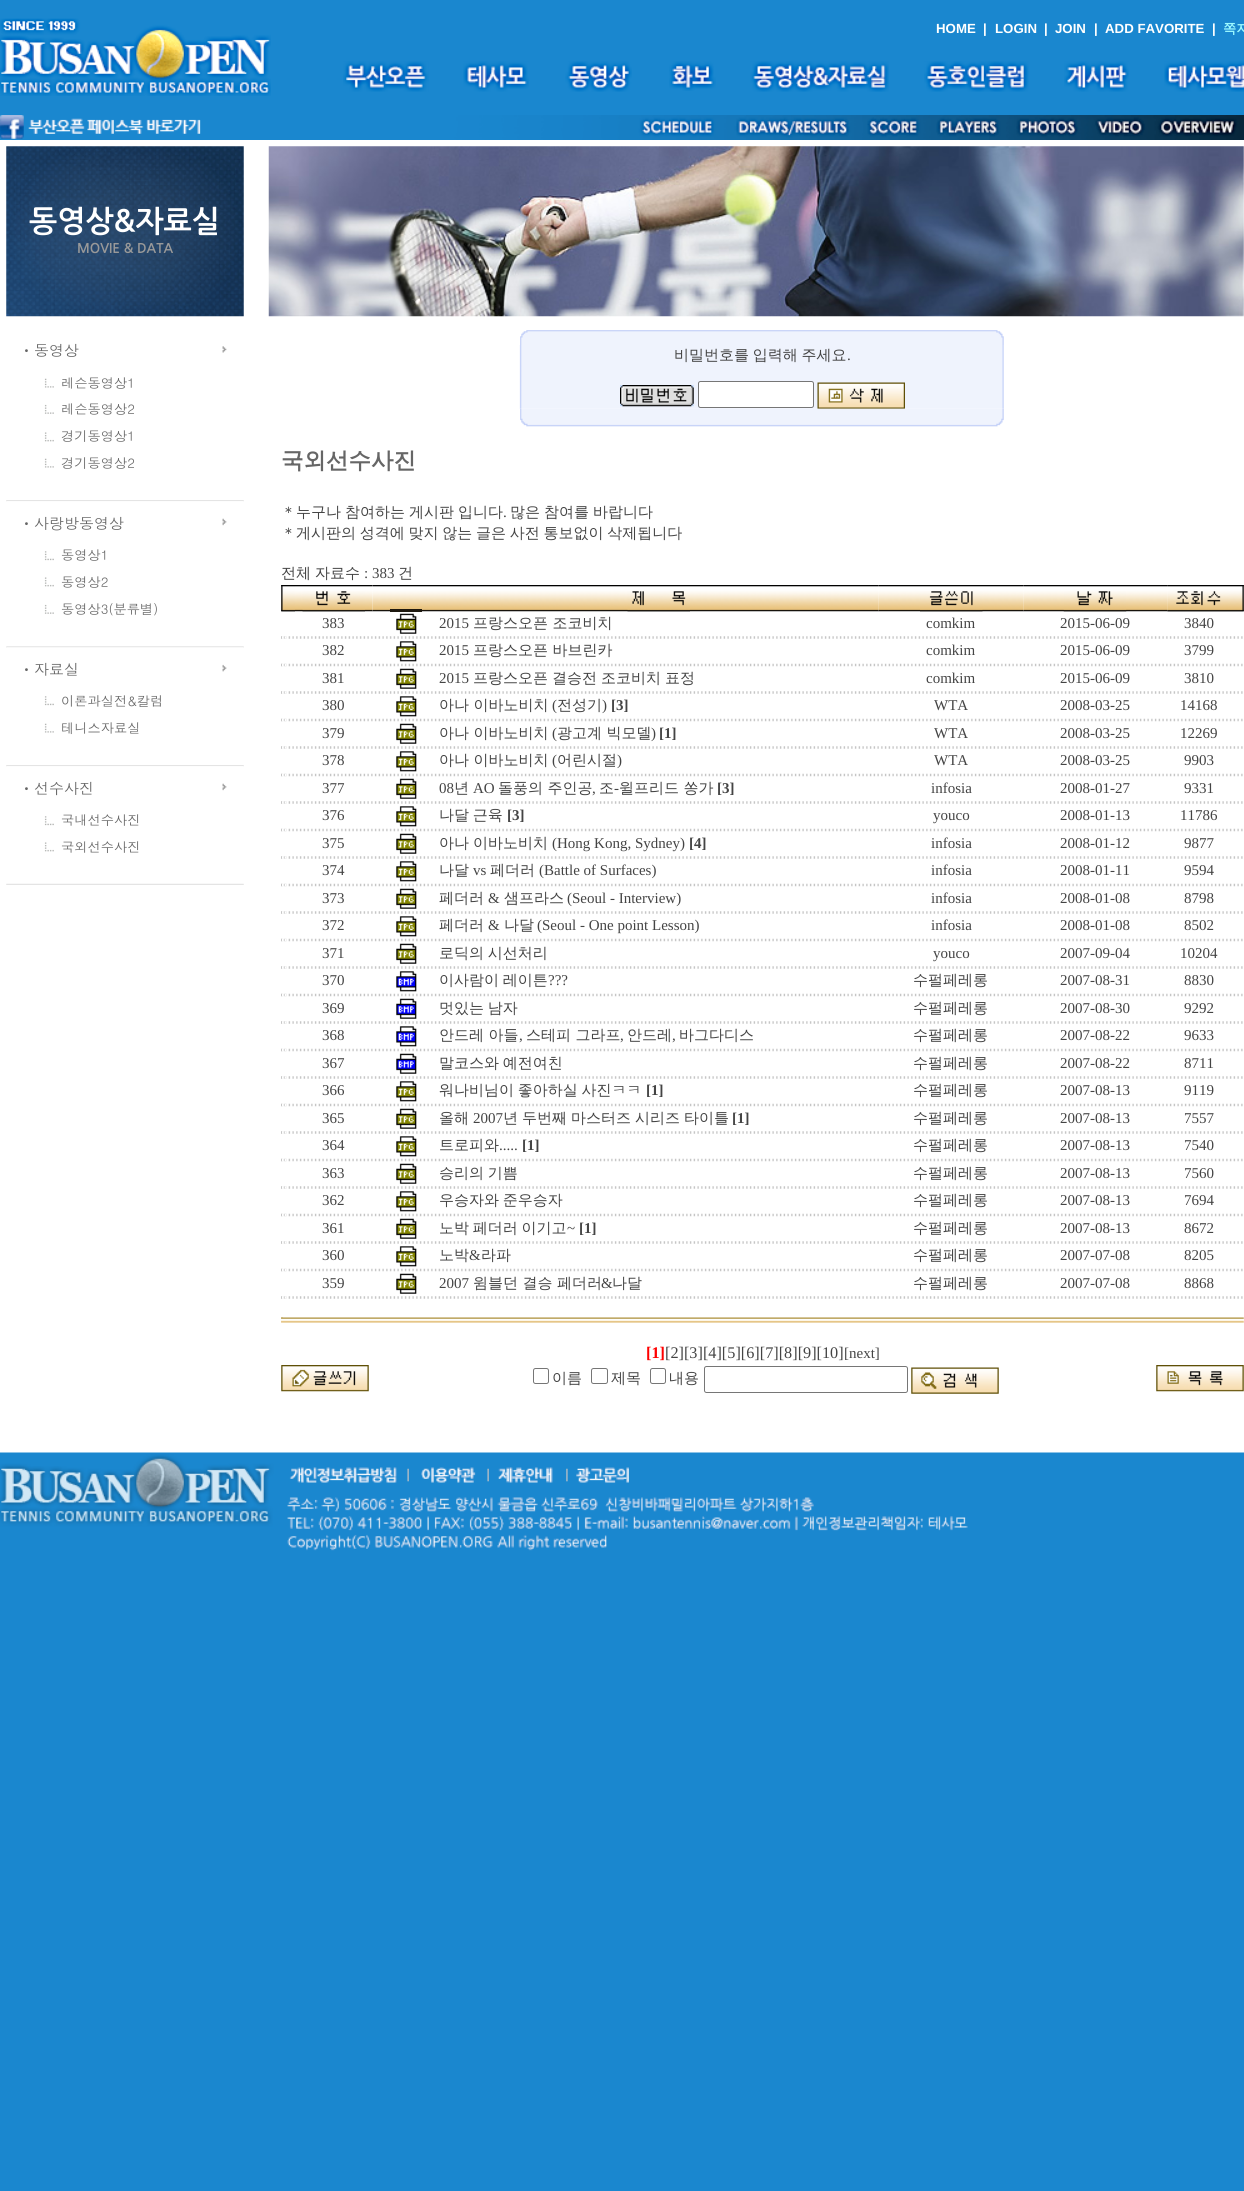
import math
import cairocffi as cairo

surface = cairo.ImageSurface(cairo.FORMAT_RGB24, 1244, 2191)
ctx = cairo.Context(surface)
options = cairo.FontOptions()
options.set_hint_metrics(cairo.HINT_METRICS_OFF)
options.set_hint_style(cairo.HINT_STYLE_NONE)
ctx.set_font_options(options)
ctx.set_miter_limit(4)


def rgb(r, g, b):
    ctx.set_source_rgb(r / 255, g / 255, b / 255)


def face(family, size, italic, bold):
    ctx.select_font_face(family, cairo.FONT_SLANT_ITALIC if italic else cairo.FONT_SLANT_NORMAL, cairo.FONT_WEIGHT_BOLD if bold else cairo.FONT_WEIGHT_NORMAL)
    ctx.set_font_size(size)


def label(x, y, s):
    ctx.move_to(x, y)
    ctx.show_text(s)


def tracked(x, y, s, letter, word):
    ctx.move_to(x, y)
    for ch in s:
        ctx.show_text(ch)
        ctx.rel_move_to(letter + word * (ch == ' '), 0)


def rect(x, y, w, h):
    ctx.rectangle(x, y, w, h)
    ctx.fill()


def rrect(x, y, w, h, r):
    ctx.new_sub_path()
    for i, (u, v) in enumerate([(x + w - r, y + h - r), (x + r, y + h - r), (x + r, y + r), (x + w - r, y + r)]):
        ctx.arc(u, v, r, i * math.pi / 2, (i + 1) * math.pi / 2)
    ctx.close_path()


def image(path, x, y, w, h):
    ctx.save()
    ctx.set_source_surface(cairo.ImageSurface.create_from_png(path), x, y)
    ctx.rectangle(x, y, w, h)
    ctx.fill()
    ctx.restore()


rgb(26, 135, 207)
ctx.paint()
image('image0.png', 0, 18, 271, 78)
face('Liberation Sans', 13.25, 0, 1)
rgb(255, 255, 255)
label(936, 33, 'HOME')
label(983, 33, '|')
label(995, 33, 'LOGIN')
label(1044, 33, '|')
label(1055, 33, 'JOIN')
label(1094, 33, '|')
label(1105, 33, 'ADD FAVORITE')
label(1212, 33, '|')
face('WenQuanYi Zen Hei', 13.25, 0, 1)
rgb(156, 249, 255)
label(1223, 33, '쪽지')
image('image1.png', 343, 61, 86, 31)
image('image2.png', 463, 61, 66, 31)
image('image3.png', 565, 61, 67, 31)
image('image4.png', 669, 61, 47, 30)
image('image5.png', 750, 61, 139, 31)
image('image6.png', 924, 61, 105, 31)
image('image7.png', 1064, 61, 65, 31)
image('image8.png', 1164, 61, 80, 31)
image('image9.png', 0, 115, 1244, 25)
rgb(255, 255, 255)
rect(0, 140, 1244, 1313)
image('image10.png', 6, 146, 238, 171)
face('NanumGothic', 30, 0, 1)
label(29, 232, '동영상&자료실')
face('NanumGothic', 13.25, 0, 1)
rgb(153, 153, 153)
label(77, 253, 'MOVIE & DATA')
image('image11.png', 222, 346, 5, 7)
face('Dotum', 15, 0, 0)
rgb(102, 102, 102)
label(19, 356, 'ㆍ동영상')
image('image12.png', 6, 500, 238, 2)
image('image13.png', 44, 378, 10, 10)
face('Dotum', 13.25, 0, 0)
label(61, 388, '레슨동영상1')
image('image14.png', 44, 404, 10, 10)
label(61, 414, '레슨동영상2')
image('image15.png', 44, 432, 10, 10)
label(61, 441, '경기동영상1')
image('image13.png', 44, 458, 10, 10)
label(61, 468, '경기동영상2')
image('image16.png', 7, 501, 236, 25)
face('Dotum', 15, 0, 0)
label(19, 529, 'ㆍ사랑방동영상')
image('image17.png', 6, 646, 238, 2)
image('image18.png', 44, 551, 10, 10)
face('Dotum', 13.25, 0, 0)
label(61, 560, '동영상1')
image('image15.png', 44, 577, 10, 10)
label(61, 587, '동영상2')
image('image14.png', 44, 604, 10, 10)
label(61, 614, '동영상3(분류별)')
image('image19.png', 7, 647, 236, 25)
face('Dotum', 15, 0, 0)
label(19, 675, 'ㆍ자료실')
image('image12.png', 6, 765, 238, 2)
image('image18.png', 44, 696, 10, 10)
face('Dotum', 13.25, 0, 0)
label(61, 706, '이론과실전&칼럼')
image('image13.png', 44, 723, 10, 10)
label(61, 733, '테니스자료실')
image('image16.png', 7, 766, 236, 25)
face('Dotum', 15, 0, 0)
label(19, 794, 'ㆍ선수사진')
image('image20.png', 6, 883, 238, 2)
image('image18.png', 44, 816, 10, 10)
face('Dotum', 13.25, 0, 0)
label(61, 825, '국내선수사진')
image('image15.png', 44, 842, 10, 10)
label(61, 852, '국외선수사진')
image('image21.png', 268, 146, 976, 171)
image('image22.png', 520, 330, 484, 15)
image('image23.png', 519, 345, 485, 64)
face('WenQuanYi Zen Hei Medium', 15, 0, 0)
rgb(68, 68, 68)
tracked(674, 360, '비밀번호를 입력해 주세요', 0, -0.75)
face('Liberation Serif', 15, 0, 0)
label(847, 360, '.')
image('image24.png', 620, 385, 74, 22)
rgb(255, 255, 255)
rrect(698.5, 381.5, 115, 26, 2)
ctx.fill_preserve()
rgb(118, 118, 118)
ctx.set_line_width(1)
ctx.stroke()
image('image25.png', 817, 382, 88, 27)
image('image26.png', 520, 408, 484, 19)
face('WenQuanYi Zen Hei', 22.5, 0, 1)
rgb(102, 102, 102)
label(281, 468, '국외선수사진')
face('WenQuanYi Zen Hei Medium', 15, 0, 0)
rgb(68, 68, 68)
tracked(281, 517, '＊누구나 참여하는 게시판 입니다', 0, -0.5)
face('Liberation Serif', 15, 0, 0)
label(503, 517, '.')
face('WenQuanYi Zen Hei Medium', 15, 0, 0)
tracked(510, 517, '많은 참여를 바랍니다', 0, -0.5)
tracked(281, 538, '＊게시판의 성격에 맞지 않는 글은 사전 통보없이 삭제됩니다', 0, -0.75)
label(281, 578, '전체')
label(315, 578, '자료수')
face('Liberation Serif', 15, 0, 0)
label(364, 578, ': 383')
face('WenQuanYi Zen Hei Medium', 15, 0, 0)
label(398, 578, '건')
image('image27.png', 281, 585, 14, 27)
image('image28.png', 281, 585, 14, 27)
image('image29.png', 295, 585, 78, 27)
image('image30.png', 302, 591, 63, 21)
image('image31.png', 372, 585, 68, 27)
rgb(29, 24, 15)
rect(390, 609, 32, 3)
image('image32.png', 440, 585, 439, 27)
image('image33.png', 627, 591, 63, 21)
image('image34.png', 878, 585, 146, 27)
image('image35.png', 920, 591, 63, 21)
image('image36.png', 1023, 585, 145, 27)
image('image37.png', 1063, 591, 64, 21)
image('image38.png', 1167, 585, 63, 27)
image('image39.png', 1167, 585, 63, 27)
image('image40.png', 1230, 585, 14, 27)
image('image41.png', 1230, 585, 14, 27)
face('Liberation Serif', 15, 0, 0)
rgb(68, 68, 68)
label(322, 628, '383')
image('image42.png', 396, 613, 21, 21)
label(439, 628, '2015')
face('WenQuanYi Zen Hei Medium', 15, 0, 0)
label(473, 628, '프랑스오픈 조코비치')
face('Liberation Serif', 15, 0, 0)
label(926, 628, 'comkim')
label(1060, 628, '2015-06-09')
label(1184, 628, '3840')
image('image43.png', 281, 636, 962, 3)
image('image44.png', 281, 636, 6, 3)
label(322, 655, '382')
image('image45.png', 396, 641, 21, 21)
label(439, 655, '2015')
face('WenQuanYi Zen Hei Medium', 15, 0, 0)
label(473, 655, '프랑스오픈 바브린카')
face('Liberation Serif', 15, 0, 0)
label(926, 655, 'comkim')
label(1060, 655, '2015-06-09')
label(1184, 655, '3799')
image('image46.png', 281, 663, 962, 4)
image('image47.png', 281, 663, 6, 4)
label(322, 683, '381')
image('image42.png', 396, 668, 21, 21)
label(439, 683, '2015')
face('WenQuanYi Zen Hei Medium', 15, 0, 0)
tracked(473, 683, '프랑스오픈 결승전 조코비치 표정', 0, -0.5)
face('Liberation Serif', 15, 0, 0)
label(926, 683, 'comkim')
label(1060, 683, '2015-06-09')
label(1184, 683, '3810')
image('image43.png', 281, 691, 962, 3)
image('image44.png', 281, 691, 6, 3)
label(322, 710, '380')
image('image45.png', 396, 696, 21, 21)
face('WenQuanYi Zen Hei Medium', 15, 0, 0)
label(439, 710, '아나 이바노비치')
face('Liberation Serif', 15, 0, 0)
label(552, 710, '(')
face('WenQuanYi Zen Hei Medium', 15, 0, 0)
label(557, 710, '전성기')
face('Liberation Serif', 15, 0, 0)
label(602, 710, ')')
face('Liberation Serif', 15, 0, 1)
label(611, 710, '[3]')
face('Liberation Serif', 15, 0, 0)
label(934, 710, 'WTA')
label(1060, 710, '2008-03-25')
label(1180, 710, '14168')
image('image46.png', 281, 718, 962, 4)
image('image47.png', 281, 718, 6, 4)
label(322, 738, '379')
image('image42.png', 396, 723, 21, 21)
face('WenQuanYi Zen Hei Medium', 15, 0, 0)
label(439, 738, '아나 이바노비치')
face('Liberation Serif', 15, 0, 0)
label(552, 738, '(')
face('WenQuanYi Zen Hei Medium', 15, 0, 0)
label(557, 738, '광고계 빅모델')
face('Liberation Serif', 15, 0, 0)
label(651, 738, ')')
face('Liberation Serif', 15, 0, 1)
label(659, 738, '[1]')
face('Liberation Serif', 15, 0, 0)
label(934, 738, 'WTA')
label(1060, 738, '2008-03-25')
label(1180, 738, '12269')
image('image43.png', 281, 746, 962, 3)
image('image44.png', 281, 746, 6, 3)
label(322, 765, '378')
image('image45.png', 396, 751, 21, 21)
face('WenQuanYi Zen Hei Medium', 15, 0, 0)
label(439, 765, '아나 이바노비치')
face('Liberation Serif', 15, 0, 0)
label(552, 765, '(')
face('WenQuanYi Zen Hei Medium', 15, 0, 0)
label(557, 765, '어린시절')
face('Liberation Serif', 15, 0, 0)
label(617, 765, ')')
label(934, 765, 'WTA')
label(1060, 765, '2008-03-25')
label(1184, 765, '9903')
image('image46.png', 281, 773, 962, 4)
image('image47.png', 281, 773, 6, 4)
label(322, 793, '377')
image('image48.png', 396, 778, 21, 21)
label(439, 793, '08')
face('WenQuanYi Zen Hei Medium', 15, 0, 0)
label(454, 793, '년')
face('Liberation Serif', 15, 0, 0)
label(473, 793, 'AO')
face('WenQuanYi Zen Hei Medium', 15, 0, 0)
label(498, 793, '돌풍의 주인공')
label(599, 793, '조')
face('Liberation Serif', 15, 0, 0)
label(614, 793, '-')
face('WenQuanYi Zen Hei Medium', 15, 0, 0)
label(619, 793, '윌프리드 쏭가')
face('Liberation Serif', 15, 0, 1)
label(717, 793, '[3]')
face('Liberation Serif', 15, 0, 0)
label(592, 793, ',')
label(931, 793, 'infosia')
label(1060, 793, '2008-01-27')
label(1184, 793, '9331')
image('image43.png', 281, 801, 962, 3)
image('image44.png', 281, 801, 6, 3)
label(322, 820, '376')
image('image45.png', 396, 806, 21, 21)
face('WenQuanYi Zen Hei Medium', 15, 0, 0)
tracked(439, 820, '나달 근육', 0, -0.75)
face('Liberation Serif', 15, 0, 1)
label(507, 820, '[3]')
face('Liberation Serif', 15, 0, 0)
label(933, 820, 'youco')
label(1060, 820, '2008-01-13')
label(1180, 820, '11786')
image('image46.png', 281, 828, 962, 4)
image('image47.png', 281, 828, 6, 4)
label(322, 848, '375')
image('image42.png', 396, 833, 21, 21)
face('WenQuanYi Zen Hei Medium', 15, 0, 0)
label(439, 848, '아나')
label(473, 848, '이바노비치')
face('Liberation Serif', 15, 0, 0)
label(552, 848, '(Hong Kong, Sydney)')
face('Liberation Serif', 15, 0, 1)
label(689, 848, '[4]')
face('Liberation Serif', 15, 0, 0)
label(931, 848, 'infosia')
label(1060, 848, '2008-01-12')
label(1184, 848, '9877')
image('image43.png', 281, 856, 962, 3)
image('image44.png', 281, 856, 6, 3)
label(322, 875, '374')
image('image45.png', 396, 861, 21, 21)
face('WenQuanYi Zen Hei Medium', 15, 0, 0)
label(439, 875, '나달')
face('Liberation Serif', 15, 0, 0)
label(473, 875, 'vs')
face('WenQuanYi Zen Hei Medium', 15, 0, 0)
label(490, 875, '페더러')
face('Liberation Serif', 15, 0, 0)
label(539, 875, '(Battle of Surfaces)')
label(931, 875, 'infosia')
label(1060, 875, '2008-01-11')
label(1184, 875, '9594')
image('image46.png', 281, 883, 962, 4)
image('image47.png', 281, 883, 6, 4)
label(322, 903, '373')
image('image42.png', 396, 888, 21, 21)
face('WenQuanYi Zen Hei Medium', 15, 0, 0)
label(439, 903, '페더러')
face('Liberation Serif', 15, 0, 0)
label(488, 903, '&')
face('WenQuanYi Zen Hei Medium', 15, 0, 0)
label(504, 903, '샘프라스')
face('Liberation Serif', 15, 0, 0)
label(567, 903, '(Seoul - Interview)')
label(931, 903, 'infosia')
label(1060, 903, '2008-01-08')
label(1184, 903, '8798')
image('image43.png', 281, 911, 962, 3)
image('image44.png', 281, 911, 6, 3)
label(322, 930, '372')
image('image45.png', 396, 916, 21, 21)
face('WenQuanYi Zen Hei Medium', 15, 0, 0)
label(439, 930, '페더러')
face('Liberation Serif', 15, 0, 0)
label(488, 930, '&')
face('WenQuanYi Zen Hei Medium', 15, 0, 0)
label(504, 930, '나달')
face('Liberation Serif', 15, 0, 0)
label(537, 930, '(Seoul - One point Lesson)')
label(931, 930, 'infosia')
label(1060, 930, '2008-01-08')
label(1184, 930, '8502')
image('image46.png', 281, 938, 962, 4)
image('image47.png', 281, 938, 6, 4)
label(322, 958, '371')
image('image42.png', 396, 943, 21, 21)
face('WenQuanYi Zen Hei Medium', 15, 0, 0)
tracked(439, 958, '로딕의 시선처리', 0, -0.75)
face('Liberation Serif', 15, 0, 0)
label(933, 958, 'youco')
label(1060, 958, '2007-09-04')
label(1180, 958, '10204')
image('image43.png', 281, 966, 962, 3)
image('image44.png', 281, 966, 6, 3)
label(322, 985, '370')
image('image49.png', 396, 971, 21, 21)
face('WenQuanYi Zen Hei Medium', 15, 0, 0)
tracked(439, 985, '이사람이 레이튼', 0, -0.75)
face('Liberation Serif', 15, 0, 0)
label(548, 985, '???')
face('WenQuanYi Zen Hei Medium', 15, 0, 0)
label(913, 985, '수펄페레롱')
face('Liberation Serif', 15, 0, 0)
label(1060, 985, '2007-08-31')
label(1184, 985, '8830')
image('image46.png', 281, 993, 962, 4)
image('image47.png', 281, 993, 6, 4)
label(322, 1013, '369')
image('image50.png', 396, 998, 21, 21)
face('WenQuanYi Zen Hei Medium', 15, 0, 0)
tracked(439, 1013, '멋있는 남자', 0, -0.75)
label(913, 1013, '수펄페레롱')
face('Liberation Serif', 15, 0, 0)
label(1060, 1013, '2007-08-30')
label(1184, 1013, '9292')
image('image43.png', 281, 1021, 962, 3)
image('image44.png', 281, 1021, 6, 3)
label(322, 1040, '368')
image('image51.png', 396, 1026, 21, 21)
face('WenQuanYi Zen Hei Medium', 15, 0, 0)
label(439, 1040, '안드레 아들')
face('Liberation Serif', 15, 0, 0)
label(519, 1040, ',')
face('WenQuanYi Zen Hei Medium', 15, 0, 0)
label(526, 1040, '스테피 그라프')
face('Liberation Serif', 15, 0, 0)
label(620, 1040, ',')
face('WenQuanYi Zen Hei Medium', 15, 0, 0)
label(627, 1040, '안드레')
face('Liberation Serif', 15, 0, 0)
label(672, 1040, ',')
face('WenQuanYi Zen Hei Medium', 15, 0, 0)
label(679, 1040, '바그다디스')
label(913, 1040, '수펄페레롱')
face('Liberation Serif', 15, 0, 0)
label(1060, 1040, '2007-08-22')
label(1184, 1040, '9633')
image('image46.png', 281, 1048, 962, 4)
image('image47.png', 281, 1048, 6, 4)
label(322, 1068, '367')
image('image50.png', 396, 1053, 21, 21)
face('WenQuanYi Zen Hei Medium', 15, 0, 0)
tracked(439, 1068, '말코스와 예전여친', 0, -0.75)
label(913, 1068, '수펄페레롱')
face('Liberation Serif', 15, 0, 0)
label(1060, 1068, '2007-08-22')
label(1184, 1068, '8711')
image('image43.png', 281, 1076, 962, 3)
image('image44.png', 281, 1076, 6, 3)
label(322, 1095, '366')
image('image45.png', 396, 1081, 21, 21)
face('WenQuanYi Zen Hei Medium', 15, 0, 0)
tracked(439, 1095, '워나비님이 좋아하실 사진ㅋㅋ', 0, -0.75)
face('Liberation Serif', 15, 0, 1)
label(646, 1095, '[1]')
face('WenQuanYi Zen Hei Medium', 15, 0, 0)
label(913, 1095, '수펄페레롱')
face('Liberation Serif', 15, 0, 0)
label(1060, 1095, '2007-08-13')
label(1184, 1095, '9119')
image('image46.png', 281, 1103, 962, 4)
image('image47.png', 281, 1103, 6, 4)
label(322, 1123, '365')
image('image42.png', 396, 1108, 21, 21)
face('WenQuanYi Zen Hei Medium', 15, 0, 0)
label(439, 1123, '올해')
face('Liberation Serif', 15, 0, 0)
label(473, 1123, '2007')
face('WenQuanYi Zen Hei Medium', 15, 0, 0)
tracked(503, 1123, '년 두번째 마스터즈 시리즈 타이틀', 0, -0.5)
face('Liberation Serif', 15, 0, 1)
label(732, 1123, '[1]')
face('WenQuanYi Zen Hei Medium', 15, 0, 0)
label(913, 1123, '수펄페레롱')
face('Liberation Serif', 15, 0, 0)
label(1060, 1123, '2007-08-13')
label(1184, 1123, '7557')
image('image43.png', 281, 1131, 962, 3)
image('image44.png', 281, 1131, 6, 3)
label(322, 1150, '364')
image('image45.png', 396, 1136, 21, 21)
face('WenQuanYi Zen Hei Medium', 15, 0, 0)
label(439, 1150, '트로피와')
face('Liberation Serif', 15, 0, 0)
label(499, 1150, '.....')
face('Liberation Serif', 15, 0, 1)
label(522, 1150, '[1]')
face('WenQuanYi Zen Hei Medium', 15, 0, 0)
label(913, 1150, '수펄페레롱')
face('Liberation Serif', 15, 0, 0)
label(1060, 1150, '2007-08-13')
label(1184, 1150, '7540')
image('image46.png', 281, 1158, 962, 4)
image('image47.png', 281, 1158, 6, 4)
label(322, 1178, '363')
image('image52.png', 396, 1163, 21, 21)
face('WenQuanYi Zen Hei Medium', 15, 0, 0)
tracked(439, 1178, '승리의 기쁨', 0, -0.75)
label(913, 1178, '수펄페레롱')
face('Liberation Serif', 15, 0, 0)
label(1060, 1178, '2007-08-13')
label(1184, 1178, '7560')
image('image43.png', 281, 1186, 962, 3)
image('image44.png', 281, 1186, 6, 3)
label(322, 1205, '362')
image('image45.png', 396, 1191, 21, 21)
face('WenQuanYi Zen Hei Medium', 15, 0, 0)
tracked(439, 1205, '우승자와 준우승자', 0, -0.75)
label(913, 1205, '수펄페레롱')
face('Liberation Serif', 15, 0, 0)
label(1060, 1205, '2007-08-13')
label(1184, 1205, '7694')
image('image46.png', 281, 1213, 962, 4)
image('image47.png', 281, 1213, 6, 4)
label(322, 1233, '361')
image('image42.png', 396, 1218, 21, 21)
face('WenQuanYi Zen Hei Medium', 15, 0, 0)
tracked(439, 1233, '노박 페더러 이기고', 0, -0.75)
face('Liberation Serif', 15, 0, 0)
label(567, 1233, '~')
face('Liberation Serif', 15, 0, 1)
label(579, 1233, '[1]')
face('WenQuanYi Zen Hei Medium', 15, 0, 0)
label(913, 1233, '수펄페레롱')
face('Liberation Serif', 15, 0, 0)
label(1060, 1233, '2007-08-13')
label(1184, 1233, '8672')
image('image43.png', 281, 1241, 962, 3)
image('image44.png', 281, 1241, 6, 3)
label(322, 1260, '360')
image('image45.png', 396, 1246, 21, 21)
face('WenQuanYi Zen Hei Medium', 15, 0, 0)
label(439, 1260, '노박')
face('Liberation Serif', 15, 0, 0)
label(469, 1260, '&')
face('WenQuanYi Zen Hei Medium', 15, 0, 0)
label(481, 1260, '라파')
label(913, 1260, '수펄페레롱')
face('Liberation Serif', 15, 0, 0)
label(1060, 1260, '2007-07-08')
label(1184, 1260, '8205')
image('image46.png', 281, 1268, 962, 4)
image('image47.png', 281, 1268, 6, 4)
label(322, 1288, '359')
image('image42.png', 396, 1273, 21, 21)
label(439, 1288, '2007')
face('WenQuanYi Zen Hei Medium', 15, 0, 0)
label(473, 1288, '윔블던 결승 페더러')
face('Liberation Serif', 15, 0, 0)
label(601, 1288, '&')
face('WenQuanYi Zen Hei Medium', 15, 0, 0)
label(612, 1288, '나달')
label(913, 1288, '수펄페레롱')
face('Liberation Serif', 15, 0, 0)
label(1060, 1288, '2007-07-08')
label(1184, 1288, '8868')
image('image43.png', 281, 1296, 962, 3)
image('image44.png', 281, 1296, 6, 3)
image('image53.png', 281, 1317, 963, 6)
image('image54.png', 281, 1317, 2, 6)
face('Liberation Serif', 16.25, 0, 1)
rgb(255, 0, 0)
label(646, 1358, '[1]')
face('Liberation Serif', 16.25, 0, 0)
rgb(68, 68, 68)
label(665, 1358, '[2][3][4][5][6][7][8][9][10]')
face('Liberation Serif', 15, 0, 0)
label(844, 1358, '[next]')
image('image55.png', 281, 1365, 88, 27)
rrect(533.5, 1368.5, 15, 15, 2)
rgb(118, 118, 118)
ctx.stroke()
face('WenQuanYi Zen Hei Medium', 15, 0, 0)
rgb(68, 68, 68)
label(552, 1383, '이름')
rrect(591.5, 1368.5, 16, 15, 2)
rgb(118, 118, 118)
ctx.stroke()
rgb(68, 68, 68)
label(611, 1383, '제목')
rrect(650.5, 1368.5, 15, 15, 2)
rgb(118, 118, 118)
ctx.stroke()
rgb(68, 68, 68)
label(669, 1383, '내용')
rrect(704.5, 1366.5, 203, 26, 2)
rgb(118, 118, 118)
ctx.stroke()
image('image56.png', 911, 1367, 88, 27)
image('image57.png', 1156, 1365, 88, 27)
image('image58.png', 0, 1452, 1244, 99)
surface.write_to_png('render.png')
